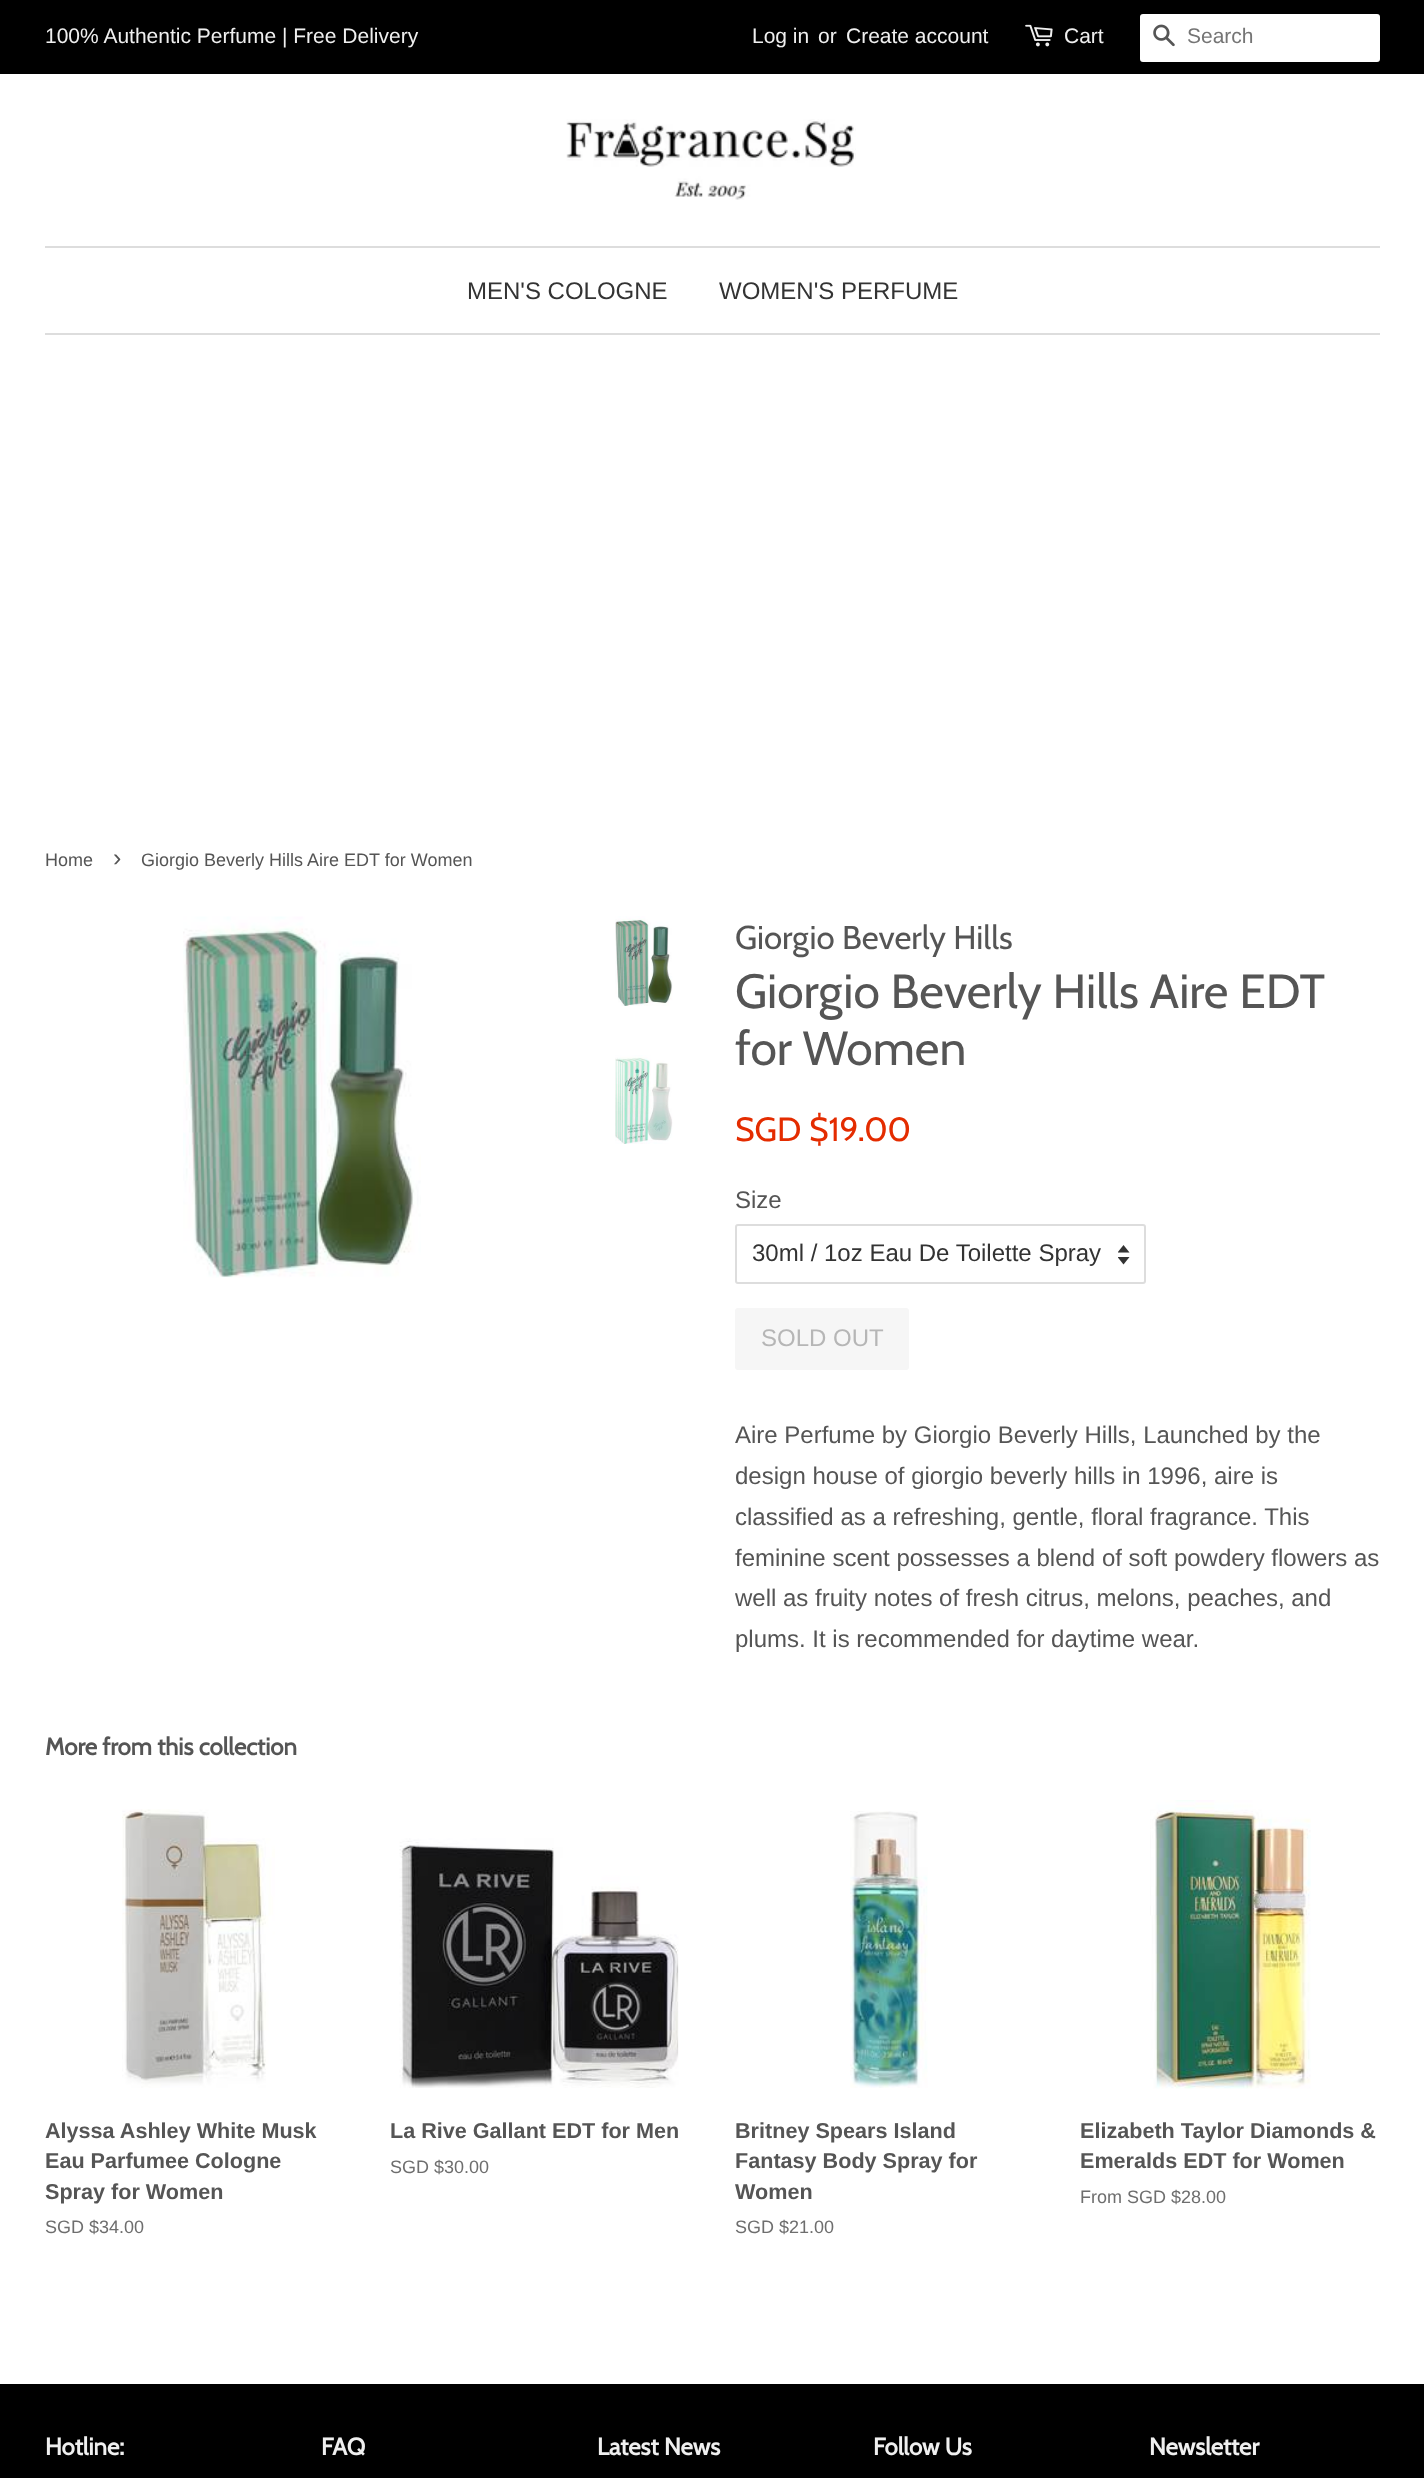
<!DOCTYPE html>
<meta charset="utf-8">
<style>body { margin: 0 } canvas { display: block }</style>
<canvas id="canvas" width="1424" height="2478"></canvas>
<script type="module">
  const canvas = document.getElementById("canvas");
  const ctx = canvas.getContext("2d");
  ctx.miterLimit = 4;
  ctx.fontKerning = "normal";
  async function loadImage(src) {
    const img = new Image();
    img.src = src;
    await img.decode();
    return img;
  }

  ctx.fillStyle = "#ffffff";
  ctx.fillRect(0, 0, 1424, 2478);
  ctx.fillStyle = "#000000";
  ctx.fillRect(0, 0, 1424, 74);
  ctx.font = "21px Liberation Sans";
  ctx.fillStyle = "#efefef";
  ctx.fillText("100% Authentic Perfume | Free Delivery", 45, 43);
  ctx.fillText("Log in", 752, 43);
  ctx.fillText("or", 818, 43);
  ctx.fillText("Create account", 846, 43);
  ctx.drawImage(await loadImage("img1.png"), 1025, 24, 28, 23);
  ctx.fillText("Cart", 1064, 43);
  ctx.fillStyle = "#ffffff";
  ctx.beginPath();
  ctx.roundRect(1140, 14, 240, 48, 3);
  ctx.fill();
  ctx.drawImage(await loadImage("img2.png"), 1153, 24, 22, 23);
  ctx.fillStyle = "#757575";
  ctx.fillText("Search", 1187, 43);
  ctx.drawImage(await loadImage("img3.png"), 566, 119, 290, 81);
  ctx.fillStyle = "#dddddd";
  ctx.fillRect(45, 246, 1335, 2);
  ctx.fillRect(45, 333, 1335, 2);
  ctx.font = "24px Liberation Sans";
  ctx.fillStyle = "#333333";
  ctx.fillText("MEN'S COLOGNE", 467, 299);
  ctx.fillText("WOMEN'S PERFUME", 719, 299);
  ctx.font = "18px Liberation Sans";
  ctx.fillStyle = "#555555";
  ctx.fillText("Home", 45, 866);
  ctx.font = "25px Liberation Sans";
  ctx.fillText("›", 113, 866);
  ctx.font = "18px Liberation Sans";
  ctx.fillText("Giorgio Beverly Hills Aire EDT for Women", 141, 866);
  ctx.drawImage(await loadImage("img4.png"), 183, 916, 238, 362);
  ctx.drawImage(await loadImage("img5.png"), 615, 916, 58, 90);
  ctx.drawImage(await loadImage("img6.png"), 615, 1055, 58, 89);
  ctx.font = "33px Cabin";
  ctx.fillText("Giorgio Beverly Hills", 735, 949);
  ctx.font = "48px Cabin";
  ctx.fillText("Giorgio Beverly Hills Aire EDT", 735, 1008);
  ctx.fillText("for Women", 735, 1065);
  ctx.font = "33.5px Cabin";
  ctx.fillStyle = "#e42c00";
  ctx.fillText("SGD $19.00", 735, 1141);
  ctx.font = "24px Liberation Sans";
  ctx.fillStyle = "#555555";
  ctx.fillText("Size", 735, 1208);
  ctx.drawImage(await loadImage("img7.png"), 1118, 1245, 12, 20);
  ctx.beginPath();
  ctx.roundRect(736, 1225, 409, 58, 2);
  ctx.strokeStyle = "#dddddd";
  ctx.lineWidth = 2;
  ctx.stroke();
  ctx.fillStyle = "#333333";
  ctx.fillText("30ml / 1oz Eau De Toilette Spray", 752, 1261);
  ctx.fillStyle = "#f6f6f6";
  ctx.beginPath();
  ctx.roundRect(735, 1308, 174, 62, 3);
  ctx.fill();
  ctx.fillStyle = "#b6b6b6";
  ctx.fillText("SOLD OUT", 761, 1346);
  ctx.fillStyle = "#555555";
  ctx.fillText("Aire Perfume by Giorgio Beverly Hills, Launched by the", 735, 1443);
  ctx.fillText("design house of giorgio beverly hills in 1996, aire is", 735, 1484);
  ctx.fillText("classified as a refreshing, gentle, floral fragrance. This", 735, 1525);
  ctx.fillText("feminine scent possesses a blend of soft powdery flowers as", 735, 1566);
  ctx.fillText("well as fruity notes of fresh citrus, melons, peaches, and", 735, 1606);
  ctx.fillText("plums. It is recommended for daytime wear.", 735, 1647);
  ctx.font = "bold 24px Cabin";
  ctx.fillText("More from this collection", 45, 1755);
  ctx.drawImage(await loadImage("img8.png"), 122, 1809, 153, 279);
  ctx.font = "bold 21.6px Liberation Sans";
  ctx.fillText("Alyssa Ashley White Musk", 45, 2138);
  ctx.fillText("Eau Parfumee Cologne", 45, 2168);
  ctx.fillText("Spray for Women", 45, 2199);
  ctx.font = "18px Liberation Sans";
  ctx.fillStyle = "#6e6e6e";
  ctx.fillText("SGD $34.00", 45, 2233);
  ctx.drawImage(await loadImage("img9.png"), 399, 1838, 280, 250);
  ctx.font = "bold 21.6px Liberation Sans";
  ctx.fillStyle = "#555555";
  ctx.fillText("La Rive Gallant EDT for Men", 390, 2138);
  ctx.font = "18px Liberation Sans";
  ctx.fillStyle = "#6e6e6e";
  ctx.fillText("SGD $30.00", 390, 2173);
  ctx.drawImage(await loadImage("img10.png"), 850, 1811, 78, 277);
  ctx.font = "bold 21.6px Liberation Sans";
  ctx.fillStyle = "#555555";
  ctx.fillText("Britney Spears Island", 735, 2138);
  ctx.fillText("Fantasy Body Spray for", 735, 2168);
  ctx.fillText("Women", 735, 2199);
  ctx.font = "18px Liberation Sans";
  ctx.fillStyle = "#6e6e6e";
  ctx.fillText("SGD $21.00", 735, 2233);
  ctx.drawImage(await loadImage("img11.png"), 1150, 1800, 161, 289);
  ctx.font = "bold 21.6px Liberation Sans";
  ctx.fillStyle = "#555555";
  ctx.fillText("Elizabeth Taylor Diamonds &", 1080, 2138);
  ctx.fillText("Emeralds EDT for Women", 1080, 2168);
  ctx.font = "18px Liberation Sans";
  ctx.fillStyle = "#6e6e6e";
  ctx.fillText("From SGD $28.00", 1080, 2203);
  ctx.fillStyle = "#000000";
  ctx.fillRect(0, 2384, 1424, 94);
  ctx.font = "bold 24px Cabin";
  ctx.fillStyle = "#efefef";
  ctx.fillText("Hotline:", 45, 2455);
  ctx.fillText("FAQ", 321, 2455);
  ctx.fillText("Latest News", 597, 2455);
  ctx.fillText("Follow Us", 873, 2455);
  ctx.fillText("Newsletter", 1149, 2455);
</script>
